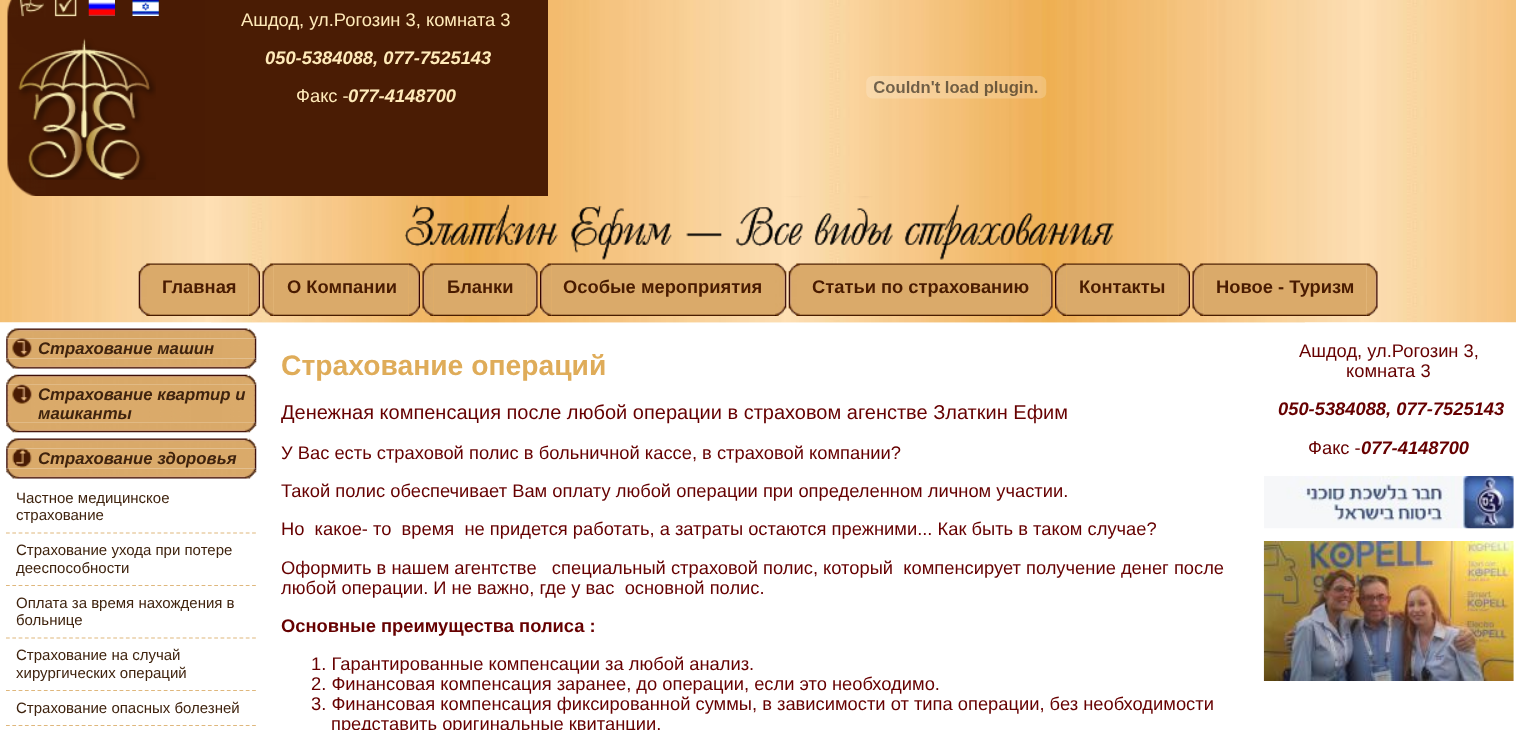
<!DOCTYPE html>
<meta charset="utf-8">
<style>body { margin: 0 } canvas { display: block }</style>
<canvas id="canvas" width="1516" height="730"></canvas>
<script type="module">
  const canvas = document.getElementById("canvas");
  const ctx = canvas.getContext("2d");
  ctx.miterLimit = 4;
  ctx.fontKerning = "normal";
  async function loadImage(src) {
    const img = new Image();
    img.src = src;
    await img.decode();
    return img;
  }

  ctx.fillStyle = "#ffffff";
  ctx.fillRect(0, 0, 1516, 730);
  ctx.drawImage(await loadImage("img1.png"), 0, 0, 1516, 323);
  ctx.drawImage(await loadImage("img2.png"), 211, 322, 1094, 1);
  ctx.drawImage(await loadImage("img3.png"), 7, 0, 198, 196);
  ctx.drawImage(await loadImage("img4.png"), 18, 0, 26, 17);
  ctx.drawImage(await loadImage("img5.png"), 54, 0, 23, 17);
  ctx.drawImage(await loadImage("img6.png"), 88, 0, 27, 16);
  ctx.drawImage(await loadImage("img7.png"), 132, 0, 27, 16);
  ctx.drawImage(await loadImage("img8.png"), 18, 38, 138, 142);
  ctx.fillStyle = "#4a1c04";
  ctx.fillRect(205, 0, 343, 196);
  ctx.font = "18.33px Liberation Sans";
  ctx.fillStyle = "#ffeab9";
  ctx.fillText("Ашдод, ул.Рогозин 3, комната 3", 241, 26);
  ctx.font = "italic bold 18.33px Liberation Sans";
  ctx.fillText("050-5384088, 077-7525143", 265, 64);
  ctx.font = "18.33px Liberation Sans";
  ctx.fillText("Факс -", 296, 102);
  ctx.font = "italic bold 18.33px Liberation Sans";
  ctx.fillText("077-4148700", 348, 102);
  ctx.drawImage(await loadImage("img9.png"), 866, 76, 181, 23);
  ctx.drawImage(await loadImage("img10.png"), 404, 196, 710, 64);
  ctx.drawImage(await loadImage("img11.png"), 138, 263, 12, 53);
  ctx.drawImage(await loadImage("img12.png"), 150, 263, 99, 53);
  ctx.font = "bold 18.33px Liberation Sans";
  ctx.fillStyle = "#491b01";
  ctx.fillText("Главная", 162, 293);
  ctx.drawImage(await loadImage("img13.png"), 248, 263, 12, 53);
  ctx.drawImage(await loadImage("img15.png"), 273, 263, 136, 53);
  ctx.drawImage(await loadImage("img14.png"), 262, 263, 12, 53);
  ctx.fillText("О Компании", 287, 293);
  ctx.drawImage(await loadImage("img16.png"), 408, 263, 12, 53);
  ctx.drawImage(await loadImage("img17.png"), 422, 263, 12, 53);
  ctx.drawImage(await loadImage("img19.png"), 526, 263, 12, 53);
  ctx.drawImage(await loadImage("img18.png"), 433, 263, 94, 53);
  ctx.fillText("Бланки", 447, 293);
  ctx.drawImage(await loadImage("img21.png"), 551, 263, 224, 53);
  ctx.drawImage(await loadImage("img20.png"), 540, 263, 12, 53);
  ctx.fillText("Особые мероприятия", 563, 293);
  ctx.drawImage(await loadImage("img22.png"), 775, 263, 12, 53);
  ctx.drawImage(await loadImage("img23.png"), 788, 263, 12, 53);
  ctx.drawImage(await loadImage("img24.png"), 800, 263, 242, 53);
  ctx.fillText("Статьи по страхованию", 812, 293);
  ctx.drawImage(await loadImage("img25.png"), 1041, 263, 12, 53);
  ctx.drawImage(await loadImage("img27.png"), 1066, 263, 113, 53);
  ctx.drawImage(await loadImage("img26.png"), 1055, 263, 12, 53);
  ctx.fillText("Контакты", 1079, 293);
  ctx.drawImage(await loadImage("img28.png"), 1178, 263, 12, 53);
  ctx.drawImage(await loadImage("img30.png"), 1203, 263, 164, 53);
  ctx.drawImage(await loadImage("img29.png"), 1192, 263, 12, 53);
  ctx.fillText("Новое - Туризм", 1216, 293);
  ctx.drawImage(await loadImage("img31.png"), 1366, 263, 12, 53);
  ctx.drawImage(await loadImage("img32.png"), 6, 328, 251, 11);
  ctx.drawImage(await loadImage("img33.png"), 6, 338, 251, 21);
  ctx.drawImage(await loadImage("img34.png"), 12, 338, 20, 20);
  ctx.font = "italic bold 16.75px Liberation Sans";
  ctx.fillStyle = "#3f230e";
  ctx.fillText("Страхование машин", 38, 354);
  ctx.drawImage(await loadImage("img35.png"), 6, 358, 251, 11);
  ctx.drawImage(await loadImage("img36.png"), 6, 374, 251, 11);
  ctx.drawImage(await loadImage("img37.png"), 6, 384, 251, 39);
  ctx.drawImage(await loadImage("img38.png"), 12, 384, 20, 20);
  ctx.fillText("Страхование квартир и", 38, 400);
  ctx.fillText("машканты", 38, 419);
  ctx.drawImage(await loadImage("img39.png"), 6, 422, 251, 11);
  ctx.drawImage(await loadImage("img32.png"), 6, 438, 251, 11);
  ctx.drawImage(await loadImage("img40.png"), 6, 448, 251, 21);
  ctx.drawImage(await loadImage("img41.png"), 12, 448, 20, 20);
  ctx.fillText("Страхование здоровья", 38, 464);
  ctx.drawImage(await loadImage("img35.png"), 6, 468, 251, 11);
  ctx.font = "15px Liberation Sans";
  ctx.fillText("Частное медицинское", 16, 503);
  ctx.fillText("страхование", 16, 520);
  ctx.beginPath();
  ctx.moveTo(6, 533);
  ctx.lineTo(256, 533);
  ctx.strokeStyle = "#dfb77c";
  ctx.lineWidth = 1.2;
  ctx.setLineDash([3.75, 2.56]);
  ctx.stroke();
  ctx.fillText("Страхование ухода при потере", 16, 555);
  ctx.fillText("дееспособности", 16, 573);
  ctx.beginPath();
  ctx.moveTo(6, 585.5);
  ctx.lineTo(256, 585.5);
  ctx.stroke();
  ctx.fillText("Оплата за время нахождения в", 16, 608);
  ctx.fillText("больнице", 16, 625);
  ctx.beginPath();
  ctx.moveTo(6, 638);
  ctx.lineTo(256, 638);
  ctx.stroke();
  ctx.fillText("Страхование на случай", 16, 660);
  ctx.fillText("хирургических операций", 16, 678);
  ctx.beginPath();
  ctx.moveTo(6, 690.5);
  ctx.lineTo(256, 690.5);
  ctx.stroke();
  ctx.fillText("Страхование опасных болезней", 16, 713);
  ctx.beginPath();
  ctx.moveTo(6, 725.5);
  ctx.lineTo(256, 725.5);
  ctx.stroke();
  ctx.font = "bold 28.25px Liberation Sans";
  ctx.fillStyle = "#dfac59";
  ctx.fillText("Страхование операций", 281, 375);
  ctx.font = "20px Liberation Sans";
  ctx.fillStyle = "#660000";
  ctx.fillText("Денежная компенсация после любой операции в страховом агенстве Златкин Ефим", 281, 419);
  ctx.font = "18.33px Liberation Sans";
  ctx.fillText("У Вас есть страховой полис в больничной кассе, в страховой компании?", 281, 459);
  ctx.fillText("Такой полис обеспечивает Вам оплату любой операции при определенном личном участии.", 281, 497);
  ctx.fillText("Но  какое- то  время  не придется работать, а затраты остаются прежними... Как быть в таком случае?", 281, 535);
  ctx.fillText("Оформить в нашем агентстве   специальный страховой полис, который  компенсирует получение денег после", 281, 574);
  ctx.fillText("любой операции. И не важно, где у вас  основной полис.", 281, 594);
  ctx.font = "bold 18.33px Liberation Sans";
  ctx.fillText("Основные преимущества полиса :", 281, 632);
  ctx.font = "18.33px Liberation Sans";
  ctx.fillText("1. Гарантированные компенсации за любой анализ.", 311, 670);
  ctx.fillText("2. Финансовая компенсация заранее, до операции, если это необходимо.", 311, 690);
  ctx.fillText("3. Финансовая компенсация фиксированной суммы, в зависимости от типа операции, без необходимости", 311, 710);
  ctx.fillText("представить оригинальные квитанции.", 331, 730);
  ctx.fillText("Ашдод, ул.Рогозин 3,", 1299, 357);
  ctx.fillText("комната 3", 1346, 377);
  ctx.font = "italic bold 18.33px Liberation Sans";
  ctx.fillText("050-5384088, 077-7525143", 1278, 415);
  ctx.font = "18.33px Liberation Sans";
  ctx.fillText("Факс -", 1308, 454);
  ctx.font = "italic bold 18.33px Liberation Sans";
  ctx.fillText("077-4148700", 1361, 454);
  ctx.drawImage(await loadImage("img42.png"), 1264, 476, 250, 53);
  ctx.drawImage(await loadImage("img43.png"), 1263, 541, 251, 140);
</script>
